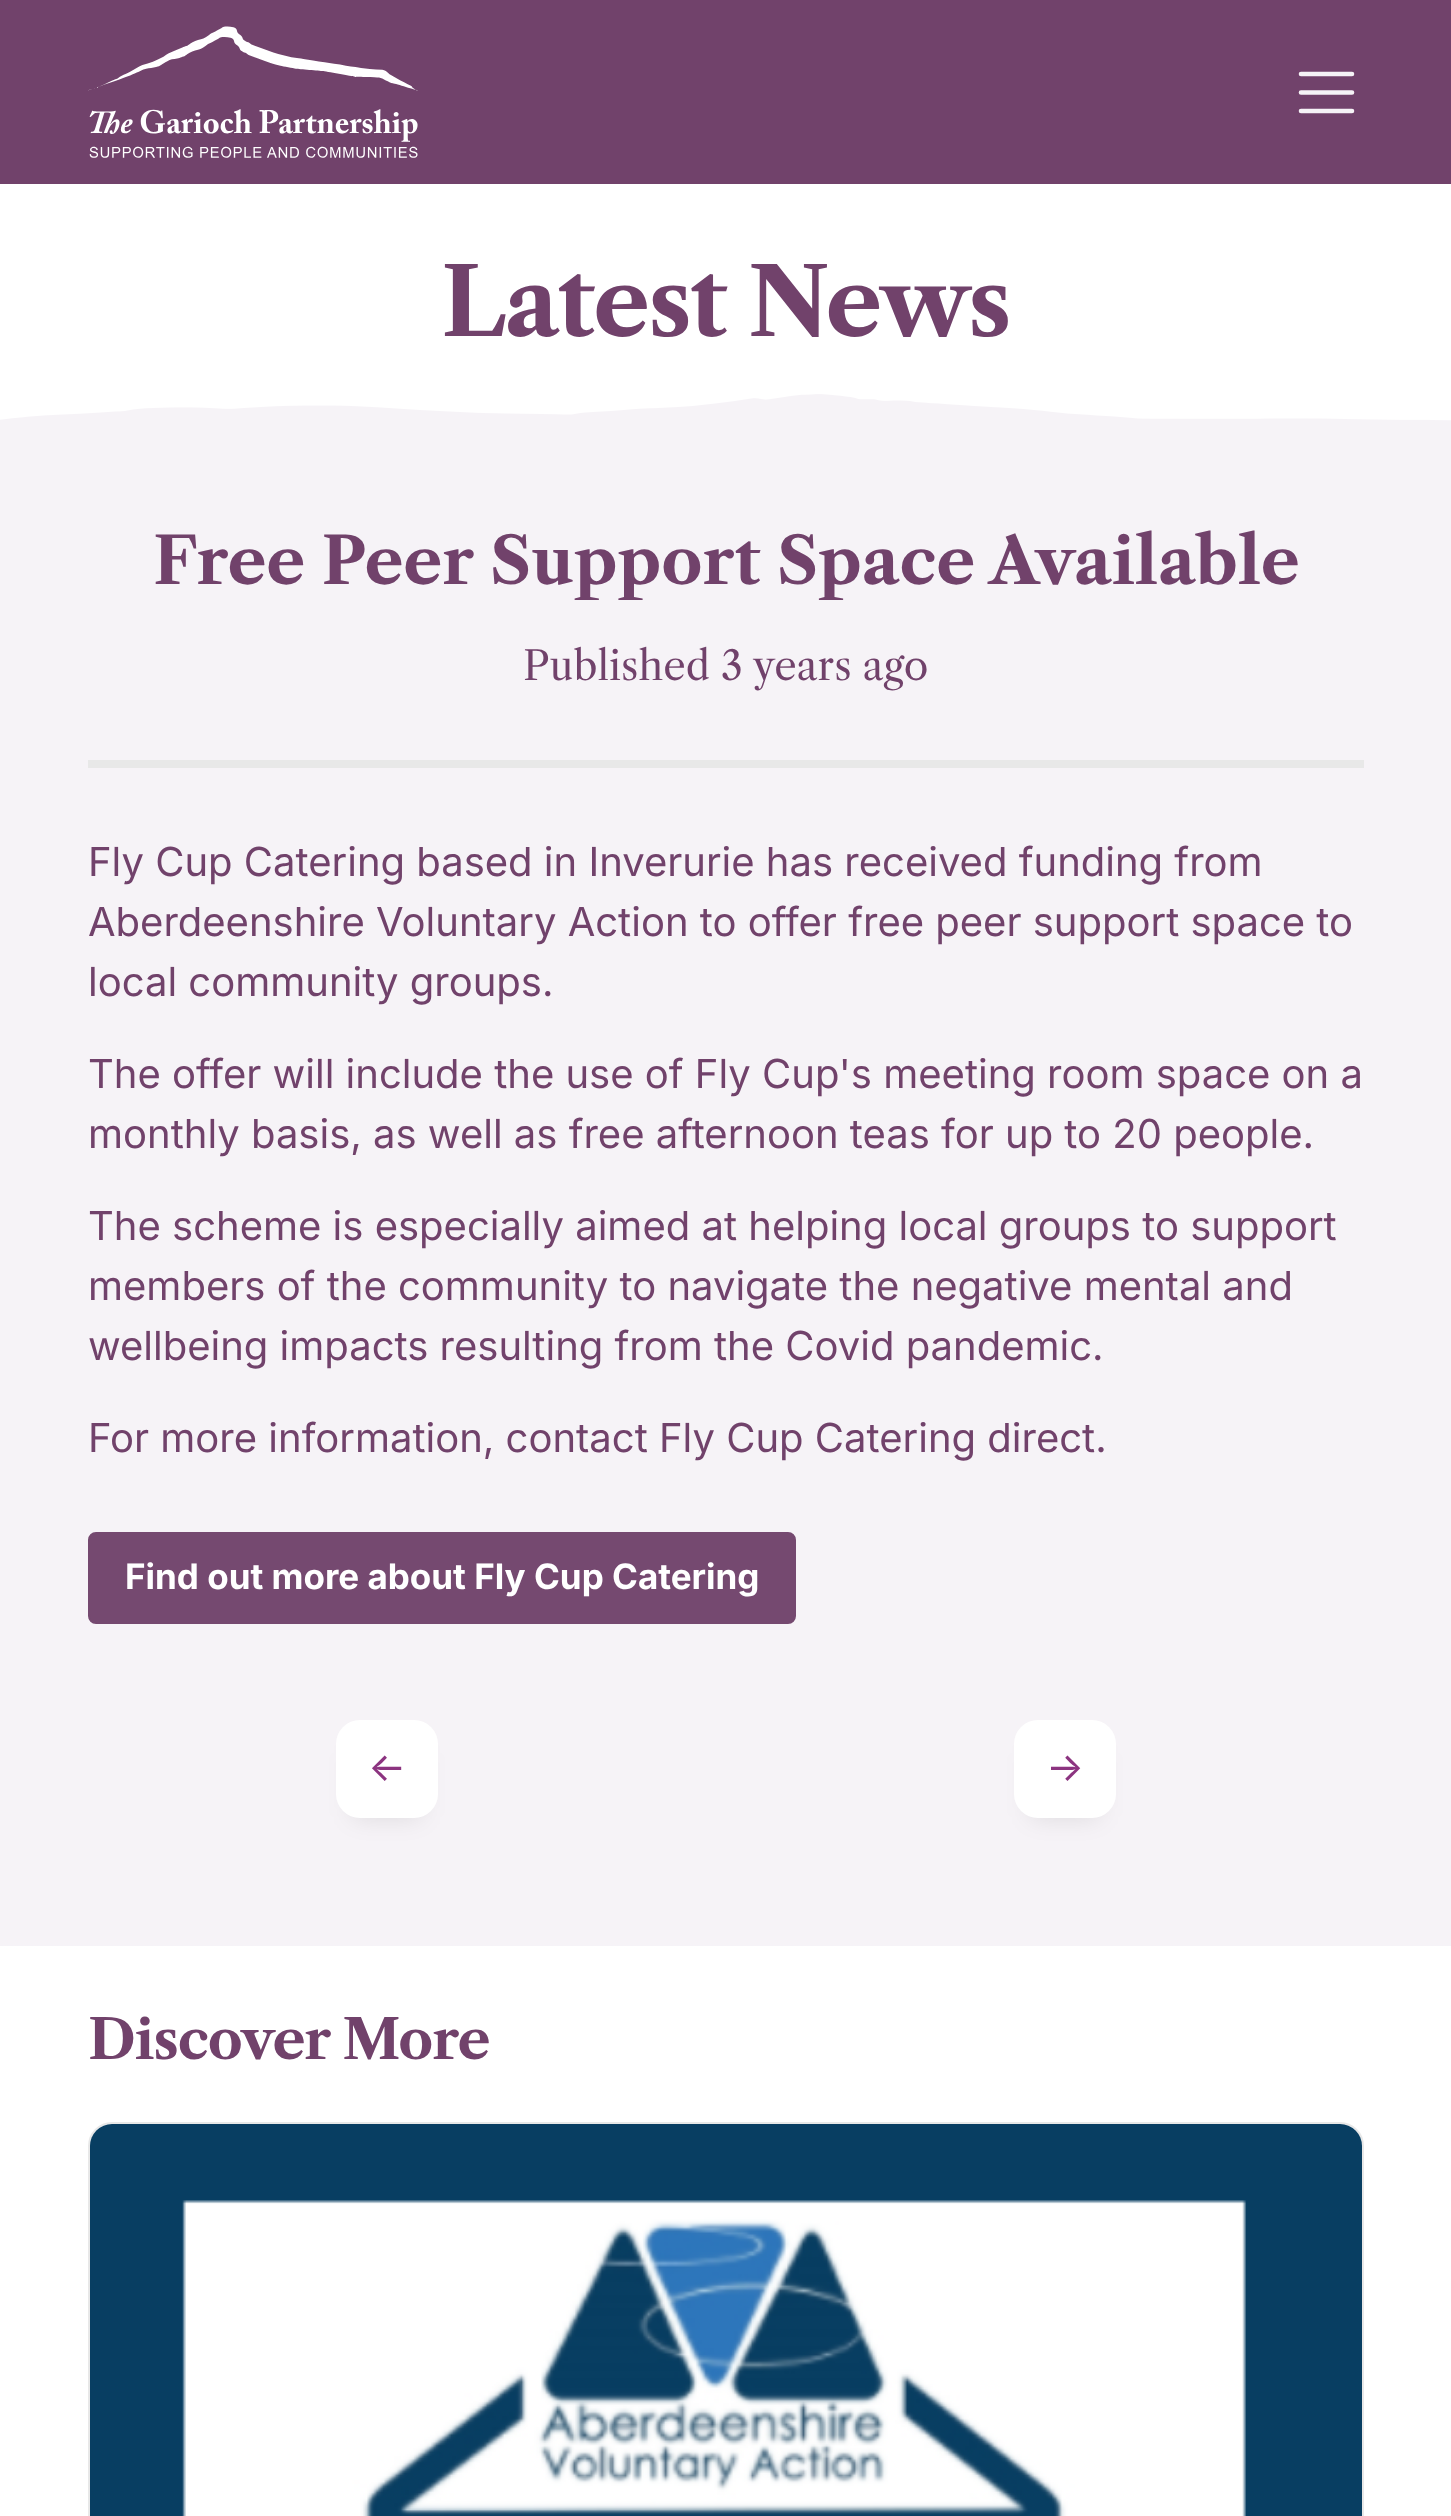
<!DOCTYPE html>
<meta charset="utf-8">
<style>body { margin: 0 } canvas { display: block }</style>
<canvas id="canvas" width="1451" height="2516"></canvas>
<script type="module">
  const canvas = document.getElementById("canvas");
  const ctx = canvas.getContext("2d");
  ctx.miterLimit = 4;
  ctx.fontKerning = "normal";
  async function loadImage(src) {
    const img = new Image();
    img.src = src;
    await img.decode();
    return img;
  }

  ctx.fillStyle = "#71426b";
  ctx.fillRect(0, 0, 1451, 2516);
  ctx.drawImage(await loadImage("img1.png"), 88, 26, 330, 132);
  ctx.beginPath();
  ctx.moveTo(1301, 74);
  ctx.lineTo(1352, 74);
  ctx.moveTo(1301, 92.5);
  ctx.lineTo(1352, 92.5);
  ctx.moveTo(1301, 111);
  ctx.lineTo(1352, 111);
  ctx.strokeStyle = "#f6f3f7";
  ctx.lineWidth = 4.6;
  ctx.lineCap = "round";
  ctx.stroke();
  ctx.fillStyle = "#f6f3f7";
  ctx.fillRect(0, 424, 1451, 1522);
  ctx.fillStyle = "#ffffff";
  ctx.fillRect(0, 184, 1451, 237);
  ctx.drawImage(await loadImage("img2.png"), 0, 394, 1451, 30);
  ctx.letterSpacing = "-1.9px";
  ctx.font = "bold 93.5px Libre Caslon Text";
  ctx.fillStyle = "#71426b";
  ctx.fillText("Latest News", 441, 336);
  ctx.letterSpacing = "0px";
  ctx.font = "bold 64.4px Libre Caslon Text";
  ctx.fillText("Free Peer Support Space Available", 153, 584);
  ctx.fillStyle = "#e8e8e8";
  ctx.fillRect(88, 760, 1276, 8);
  ctx.font = "40px Libre Caslon Text";
  ctx.fillStyle = "#71426b";
  ctx.fillText("Published 3 years ago", 523, 680);
  ctx.font = "40px Inter";
  ctx.fillText("Fly Cup Catering based in Inverurie has received funding from", 88, 876);
  ctx.fillText("Aberdeenshire Voluntary Action to offer free peer support space to", 88, 936);
  ctx.fillText("local community groups.", 88, 996);
  ctx.fillText("The offer will include the use of Fly Cup's meeting room space on a", 88, 1088);
  ctx.fillText("monthly basis, as well as free afternoon teas for up to 20 people.", 88, 1148);
  ctx.fillText("The scheme is especially aimed at helping local groups to support", 88, 1240);
  ctx.fillText("members of the community to navigate the negative mental and", 88, 1300);
  ctx.fillText("wellbeing impacts resulting from the Covid pandemic.", 88, 1360);
  ctx.fillText("For more information, contact Fly Cup Catering direct.", 88, 1452);
  ctx.fillStyle = "#754970";
  ctx.beginPath();
  ctx.roundRect(89, 1533, 706, 90, 7);
  ctx.fill();
  ctx.strokeStyle = "#754970";
  ctx.lineWidth = 2;
  ctx.stroke();
  ctx.font = "bold 35px Inter";
  ctx.fillStyle = "#ffffff";
  ctx.fillText("Find out more about Fly Cup Catering", 125, 1589);
  ctx.fillStyle = "rgba(0, 0, 0, 0.1)";
  ctx.filter = "blur(12px)";
  ctx.beginPath();
  ctx.roundRect(352, 1752, 70, 66, 8);
  ctx.fill();
  ctx.filter = "none";
  ctx.fillStyle = "#ffffff";
  ctx.beginPath();
  ctx.roundRect(336, 1720, 102, 98, 24);
  ctx.fill();
  ctx.font = "40px Inter";
  ctx.fillStyle = "#8c3480";
  ctx.fillText("←", 368, 1781);
  ctx.fillStyle = "rgba(0, 0, 0, 0.1)";
  ctx.filter = "blur(12px)";
  ctx.beginPath();
  ctx.roundRect(1030, 1752, 70, 66, 8);
  ctx.fill();
  ctx.filter = "none";
  ctx.fillStyle = "#ffffff";
  ctx.beginPath();
  ctx.roundRect(1014, 1720, 102, 98, 24);
  ctx.fill();
  ctx.fillStyle = "#8c3480";
  ctx.fillText("→", 1046, 1781);
  ctx.fillStyle = "#ffffff";
  ctx.fillRect(0, 1946, 1451, 570);
  ctx.letterSpacing = "-1.1px";
  ctx.font = "bold 54.5px Libre Caslon Text";
  ctx.fillStyle = "#71426b";
  ctx.fillText("Discover More", 88, 2059);
  ctx.beginPath();
  ctx.roundRect(89, 2123, 1274, 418, 23);
  ctx.strokeStyle = "#e8e8e8";
  ctx.stroke();
  ctx.drawImage(await loadImage("img3.png"), 90, 2124, 1272, 392);
</script>
